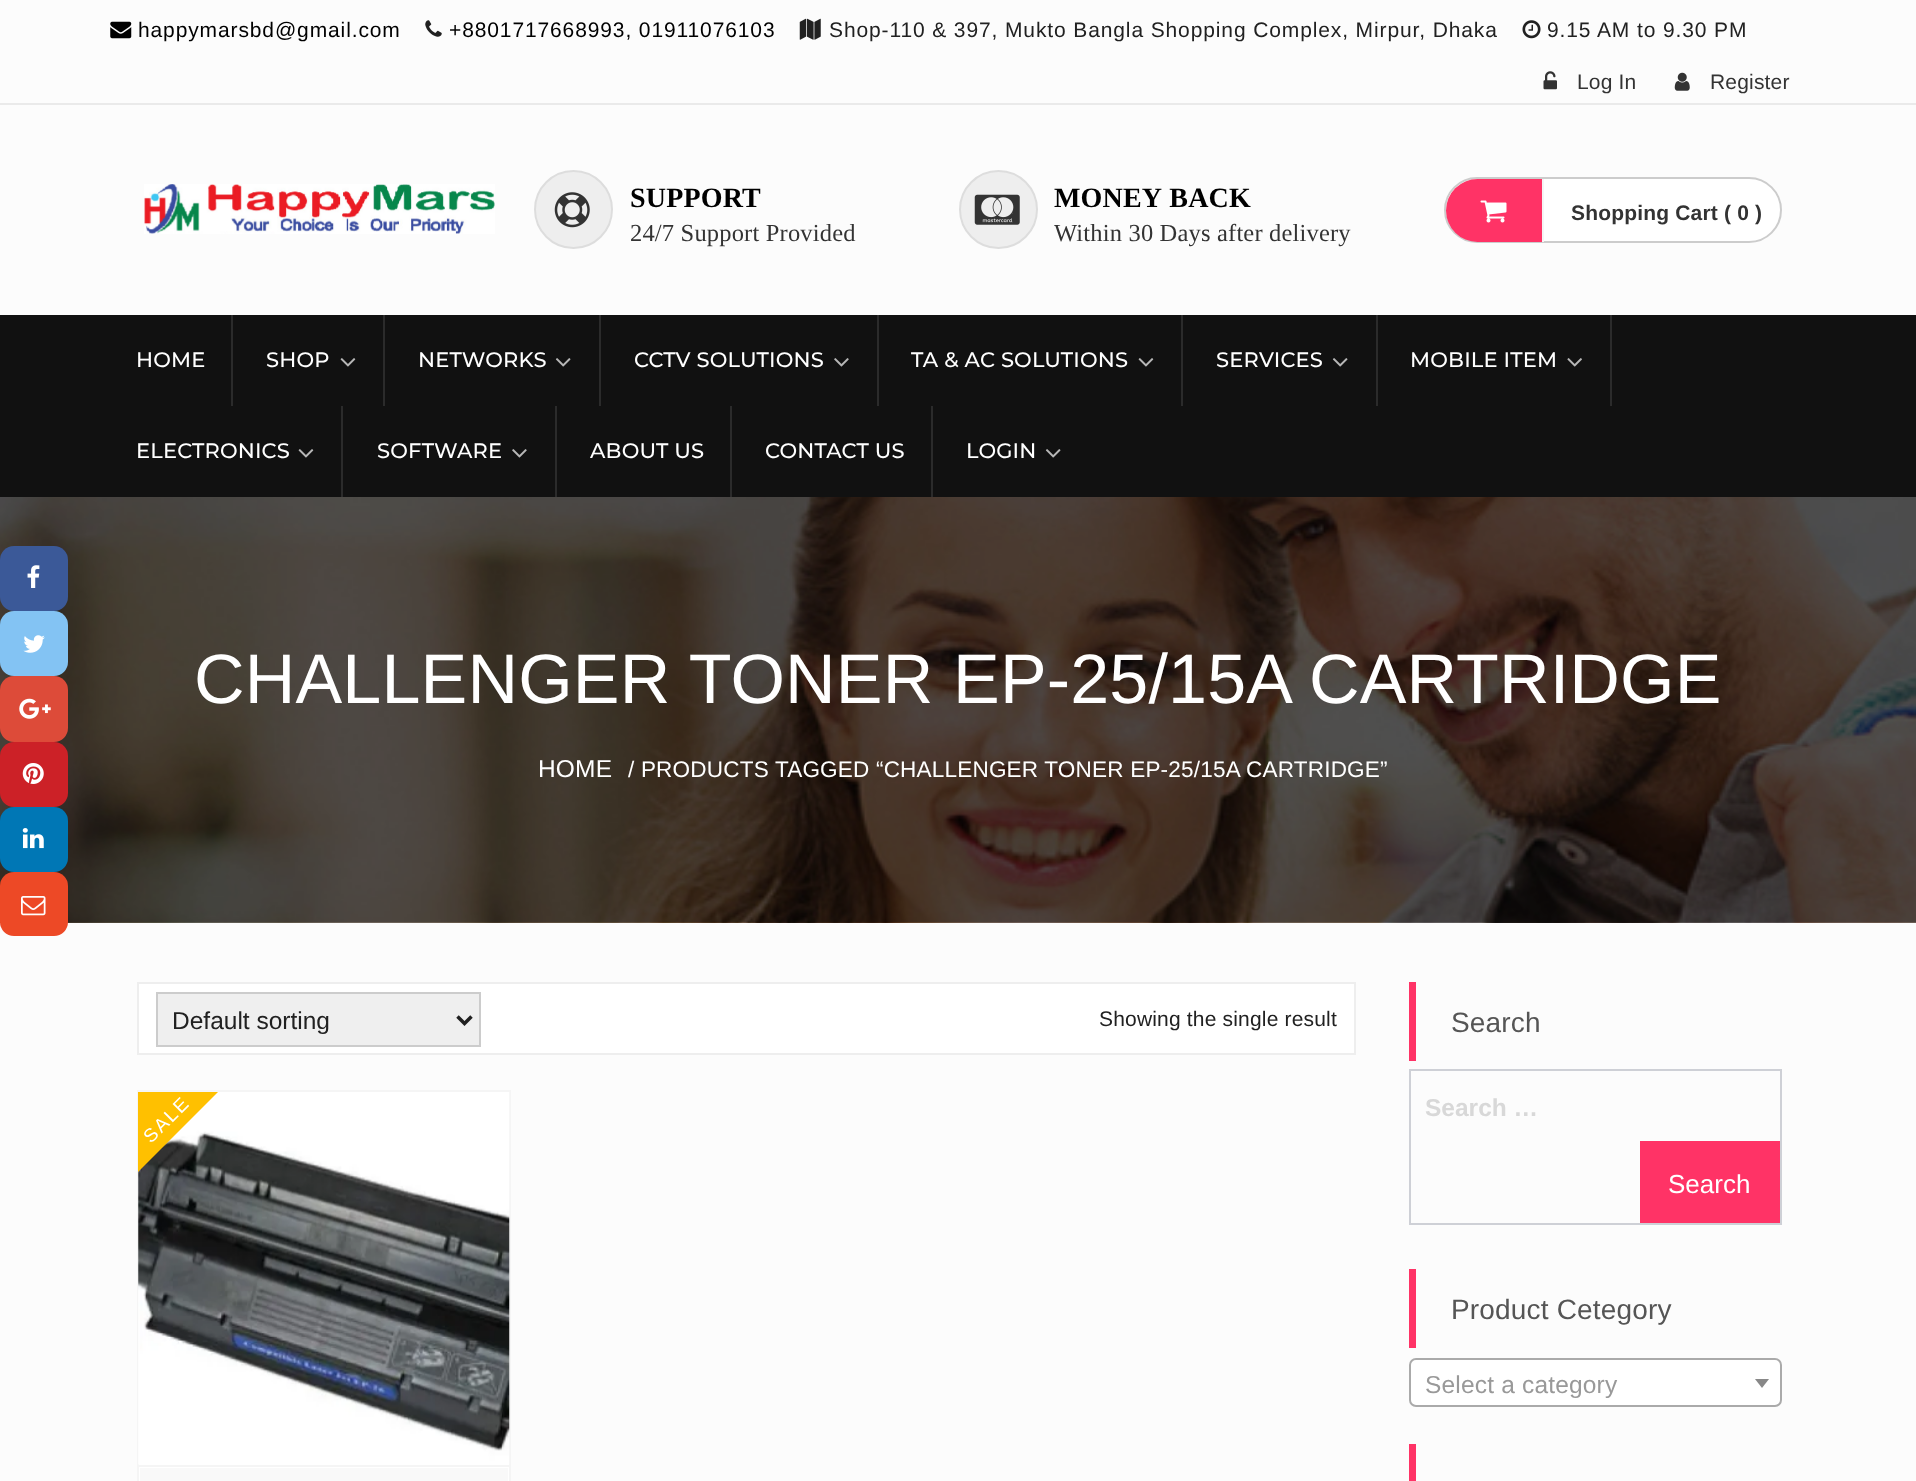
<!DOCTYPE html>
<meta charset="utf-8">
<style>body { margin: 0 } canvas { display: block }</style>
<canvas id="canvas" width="1916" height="1481"></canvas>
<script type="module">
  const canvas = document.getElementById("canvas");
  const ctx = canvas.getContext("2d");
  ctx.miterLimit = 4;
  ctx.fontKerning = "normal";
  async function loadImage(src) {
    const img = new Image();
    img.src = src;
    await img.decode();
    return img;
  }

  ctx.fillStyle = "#fcfcfc";
  ctx.fillRect(0, 0, 1916, 1481);
  ctx.drawImage(await loadImage("img21.png"), 0, 497, 1916, 426);
  ctx.fillStyle = "#3b5998";
  ctx.beginPath();
  ctx.roundRect(0, 546, 68, 65, 14);
  ctx.fill();
  ctx.drawImage(await loadImage("img1.png"), 27, 565, 13, 23);
  ctx.fillStyle = "#83c3f3";
  ctx.beginPath();
  ctx.roundRect(0, 611, 68, 65, 14);
  ctx.fill();
  ctx.drawImage(await loadImage("img2.png"), 23, 635, 22, 18);
  ctx.fillStyle = "#dd4b39";
  ctx.beginPath();
  ctx.roundRect(0, 676, 68, 66, 14);
  ctx.fill();
  ctx.drawImage(await loadImage("img3.png"), 19, 698, 32, 21);
  ctx.fillStyle = "#cc2127";
  ctx.beginPath();
  ctx.roundRect(0, 742, 68, 65, 14);
  ctx.fill();
  ctx.drawImage(await loadImage("img4.png"), 22, 763, 22, 21);
  ctx.fillStyle = "#0077b5";
  ctx.beginPath();
  ctx.roundRect(0, 807, 68, 65, 14);
  ctx.fill();
  ctx.drawImage(await loadImage("img5.png"), 22, 828, 22, 21);
  ctx.fillStyle = "#ed4926";
  ctx.beginPath();
  ctx.roundRect(0, 872, 68, 64, 14);
  ctx.fill();
  ctx.drawImage(await loadImage("img6.png"), 21, 896, 25, 20);
  ctx.fillStyle = "#eaeaea";
  ctx.fillRect(0, 103, 1916, 2);
  ctx.drawImage(await loadImage("img7.png"), 110, 21, 22, 18);
  ctx.letterSpacing = "0.88px";
  ctx.font = "21px Liberation Sans";
  ctx.fillStyle = "#000000";
  ctx.fillText("happymarsbd@gmail.com", 138, 37);
  ctx.drawImage(await loadImage("img8.png"), 425, 20, 17, 17);
  ctx.fillText("+8801717668993, 01911076103", 449, 37);
  ctx.drawImage(await loadImage("img9.png"), 799, 18, 22, 22);
  ctx.fillStyle = "#212121";
  ctx.fillText("Shop-110 & 397, Mukto Bangla Shopping Complex, Mirpur, Dhaka", 829, 37);
  ctx.drawImage(await loadImage("img10.png"), 1522, 20, 19, 19);
  ctx.fillText("9.15 AM to 9.30 PM", 1547, 37);
  ctx.drawImage(await loadImage("img11.png"), 1543, 71, 14, 19);
  ctx.letterSpacing = "0.18px";
  ctx.fillStyle = "#333333";
  ctx.fillText("Log In", 1577, 89);
  ctx.drawImage(await loadImage("img12.png"), 1674, 72, 16, 19);
  ctx.fillText("Register", 1710, 89);
  ctx.drawImage(await loadImage("img13.png"), 144, 184, 351, 50);
  ctx.fillStyle = "#eeeeee";
  ctx.beginPath();
  ctx.arc(573.5, 209.5, 38.5, 0, Math.PI * 2);
  ctx.fill();
  ctx.strokeStyle = "#dddddd";
  ctx.lineWidth = 2;
  ctx.stroke();
  ctx.drawImage(await loadImage("img14.png"), 554, 192, 36, 36);
  ctx.font = "bold 28px Liberation Serif";
  ctx.fillStyle = "#000000";
  ctx.fillText("SUPPORT", 630, 207);
  ctx.font = "24.5px Liberation Serif";
  ctx.fillStyle = "#333333";
  ctx.fillText("24/7 Support Provided", 630, 241);
  ctx.fillStyle = "#eeeeee";
  ctx.beginPath();
  ctx.arc(998.5, 209.5, 38.5, 0, Math.PI * 2);
  ctx.fill();
  ctx.stroke();
  ctx.drawImage(await loadImage("img15.png"), 974, 194, 46, 31);
  ctx.wordSpacing = "1px";
  ctx.font = "bold 28px Liberation Serif";
  ctx.fillStyle = "#000000";
  ctx.fillText("MONEY BACK", 1054, 207);
  ctx.wordSpacing = "0px";
  ctx.font = "24.5px Liberation Serif";
  ctx.fillStyle = "#333333";
  ctx.fillText("Within 30 Days after delivery", 1054, 241);
  ctx.fillStyle = "#ffffff";
  ctx.beginPath();
  ctx.roundRect(1445, 178, 336, 64, 32);
  ctx.fill();
  ctx.strokeStyle = "#cccccc";
  ctx.stroke();
  ctx.fillStyle = "#ff3366";
  ctx.beginPath();
  ctx.roundRect(1446, 179, 98, 63, [31.5, 0, 0, 31.5]);
  ctx.fill();
  ctx.fillStyle = "#f5f5f5";
  ctx.fillRect(1542, 179, 2, 63);
  ctx.drawImage(await loadImage("img16.png"), 1480, 200, 27, 23);
  ctx.font = "bold 21px Liberation Sans";
  ctx.fillStyle = "#333333";
  ctx.fillText("Shopping Cart ( 0 )", 1571, 220);
  ctx.fillStyle = "#111111";
  ctx.fillRect(0, 315, 1916, 182);
  ctx.fillStyle = "#2b2b2b";
  ctx.fillRect(231, 315, 2, 91);
  ctx.font = "500 21px Montserrat";
  ctx.fillStyle = "#ffffff";
  ctx.fillText("HOME", 136, 367);
  ctx.fillStyle = "#2b2b2b";
  ctx.fillRect(383, 315, 2, 91);
  ctx.fillStyle = "#ffffff";
  ctx.fillText("SHOP", 266, 367);
  ctx.drawImage(await loadImage("img17.png"), 340, 358, 16, 9);
  ctx.fillStyle = "#2b2b2b";
  ctx.fillRect(599, 315, 2, 91);
  ctx.fillStyle = "#ffffff";
  ctx.fillText("NETWORKS", 418, 367);
  ctx.drawImage(await loadImage("img18.png"), 555, 358, 16, 9);
  ctx.fillStyle = "#2b2b2b";
  ctx.fillRect(877, 315, 2, 91);
  ctx.fillStyle = "#ffffff";
  ctx.fillText("CCTV SOLUTIONS", 634, 367);
  ctx.drawImage(await loadImage("img19.png"), 834, 358, 15, 9);
  ctx.fillStyle = "#2b2b2b";
  ctx.fillRect(1181, 315, 2, 91);
  ctx.fillStyle = "#ffffff";
  ctx.fillText("TA & AC SOLUTIONS", 911, 367);
  ctx.drawImage(await loadImage("img17.png"), 1138, 358, 16, 9);
  ctx.fillStyle = "#2b2b2b";
  ctx.fillRect(1376, 315, 2, 91);
  ctx.fillStyle = "#ffffff";
  ctx.fillText("SERVICES", 1216, 367);
  ctx.drawImage(await loadImage("img18.png"), 1332, 358, 16, 9);
  ctx.fillStyle = "#2b2b2b";
  ctx.fillRect(1610, 315, 2, 91);
  ctx.fillStyle = "#ffffff";
  ctx.fillText("MOBILE ITEM", 1410, 367);
  ctx.drawImage(await loadImage("img20.png"), 1567, 358, 15, 9);
  ctx.fillStyle = "#2b2b2b";
  ctx.fillRect(341, 406, 2, 91);
  ctx.fillStyle = "#ffffff";
  ctx.fillText("ELECTRONICS", 136, 458);
  ctx.drawImage(await loadImage("img17.png"), 298, 449, 16, 9);
  ctx.fillStyle = "#2b2b2b";
  ctx.fillRect(555, 406, 2, 91);
  ctx.fillStyle = "#ffffff";
  ctx.fillText("SOFTWARE", 377, 458);
  ctx.drawImage(await loadImage("img19.png"), 512, 449, 15, 9);
  ctx.fillStyle = "#2b2b2b";
  ctx.fillRect(730, 406, 2, 91);
  ctx.fillStyle = "#ffffff";
  ctx.fillText("ABOUT US", 590, 458);
  ctx.fillStyle = "#2b2b2b";
  ctx.fillRect(931, 406, 2, 91);
  ctx.fillStyle = "#ffffff";
  ctx.fillText("CONTACT US", 765, 458);
  ctx.fillText("LOGIN", 966, 458);
  ctx.drawImage(await loadImage("img18.png"), 1045, 449, 16, 9);
  ctx.font = "70px Liberation Sans";
  ctx.fillText("CHALLENGER TONER EP-25/15A CARTRIDGE", 194, 703);
  ctx.font = "24.5px Liberation Sans";
  ctx.fillText("HOME", 538, 777);
  ctx.font = "22.55px Liberation Sans";
  ctx.fillText("/ PRODUCTS TAGGED “CHALLENGER TONER EP-25/15A CARTRIDGE”", 628, 777);
  ctx.beginPath();
  ctx.rect(138, 983, 1217, 71);
  ctx.fill();
  ctx.strokeStyle = "#eeeeee";
  ctx.stroke();
  ctx.fillStyle = "#efefef";
  ctx.beginPath();
  ctx.rect(157, 993, 323, 53);
  ctx.fill();
  ctx.strokeStyle = "#cccccc";
  ctx.stroke();
  ctx.beginPath();
  ctx.moveTo(457.5, 1016.5);
  ctx.lineTo(464.5, 1023.5);
  ctx.lineTo(471.5, 1016.5);
  ctx.strokeStyle = "#212121";
  ctx.lineWidth = 3.5;
  ctx.stroke();
  ctx.letterSpacing = "0px";
  ctx.font = "24.5px Liberation Sans";
  ctx.fillStyle = "#212121";
  ctx.fillText("Default sorting", 172, 1029);
  ctx.letterSpacing = "0.18px";
  ctx.font = "21px Liberation Sans";
  ctx.fillText("Showing the single result", 1099, 1026);
  ctx.fillStyle = "#ffffff";
  ctx.fillRect(139, 1464, 370, 17);
  ctx.strokeStyle = "#f5f5f5";
  ctx.lineWidth = 2;
  ctx.strokeRect(138, 1091, 372, 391);
  ctx.fillStyle = "#f5f5f5";
  ctx.fillRect(138, 1465, 371, 2);
  ctx.drawImage(await loadImage("img22.png"), 138, 1092, 372, 373);
  ctx.save();
  ctx.beginPath();
  ctx.rect(138, 1092, 371, 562);
  ctx.clip();
  ctx.fillStyle = "#ffc000";
  ctx.beginPath();
  ctx.moveTo(83, 1128);
  ctx.lineTo(176, 1036);
  ctx.lineTo(225, 1085);
  ctx.lineTo(132, 1178);
  ctx.closePath();
  ctx.fill();
  ctx.restore();
  ctx.letterSpacing = "2px";
  ctx.font = "19px Liberation Sans";
  ctx.fillStyle = "#ffffff";
  ctx.save();
  ctx.translate(151, 1144);
  ctx.rotate(-45 * Math.PI / 180);
  ctx.fillText("SALE", 0, 0);
  ctx.restore();
  ctx.fillStyle = "#f9f9f9";
  ctx.fillRect(140, 1468, 368, 13);
  ctx.fillStyle = "#ff3366";
  ctx.fillRect(1409, 982, 7, 79);
  ctx.letterSpacing = "0.18px";
  ctx.font = "28px Liberation Sans";
  ctx.fillStyle = "#555555";
  ctx.fillText("Search", 1451, 1032);
  ctx.strokeStyle = "#ced0d6";
  ctx.strokeRect(1410, 1070, 371, 154);
  ctx.letterSpacing = "0px";
  ctx.font = "bold 24.5px Liberation Sans";
  ctx.fillStyle = "#d8d8d8";
  ctx.fillText("Search …", 1425, 1116);
  ctx.fillStyle = "#ff3366";
  ctx.fillRect(1640, 1141, 140, 82);
  ctx.font = "26px Liberation Sans";
  ctx.fillStyle = "#ffffff";
  ctx.fillText("Search", 1668, 1193);
  ctx.fillStyle = "#ff3366";
  ctx.fillRect(1409, 1269, 7, 79);
  ctx.letterSpacing = "0.18px";
  ctx.font = "28px Liberation Sans";
  ctx.fillStyle = "#555555";
  ctx.fillText("Product Cetegory", 1451, 1319);
  ctx.fillStyle = "#ffffff";
  ctx.beginPath();
  ctx.roundRect(1410, 1359, 371, 47, 6);
  ctx.fill();
  ctx.strokeStyle = "#aaaaaa";
  ctx.stroke();
  ctx.font = "24.5px Liberation Sans";
  ctx.fillStyle = "#999999";
  ctx.fillText("Select a category", 1425, 1393);
  ctx.fillStyle = "#888888";
  ctx.beginPath();
  ctx.moveTo(1755, 1379);
  ctx.lineTo(1769, 1379);
  ctx.lineTo(1762, 1388);
  ctx.closePath();
  ctx.fill();
  ctx.fillStyle = "#ff3366";
  ctx.fillRect(1409, 1444, 7, 37);
</script>
